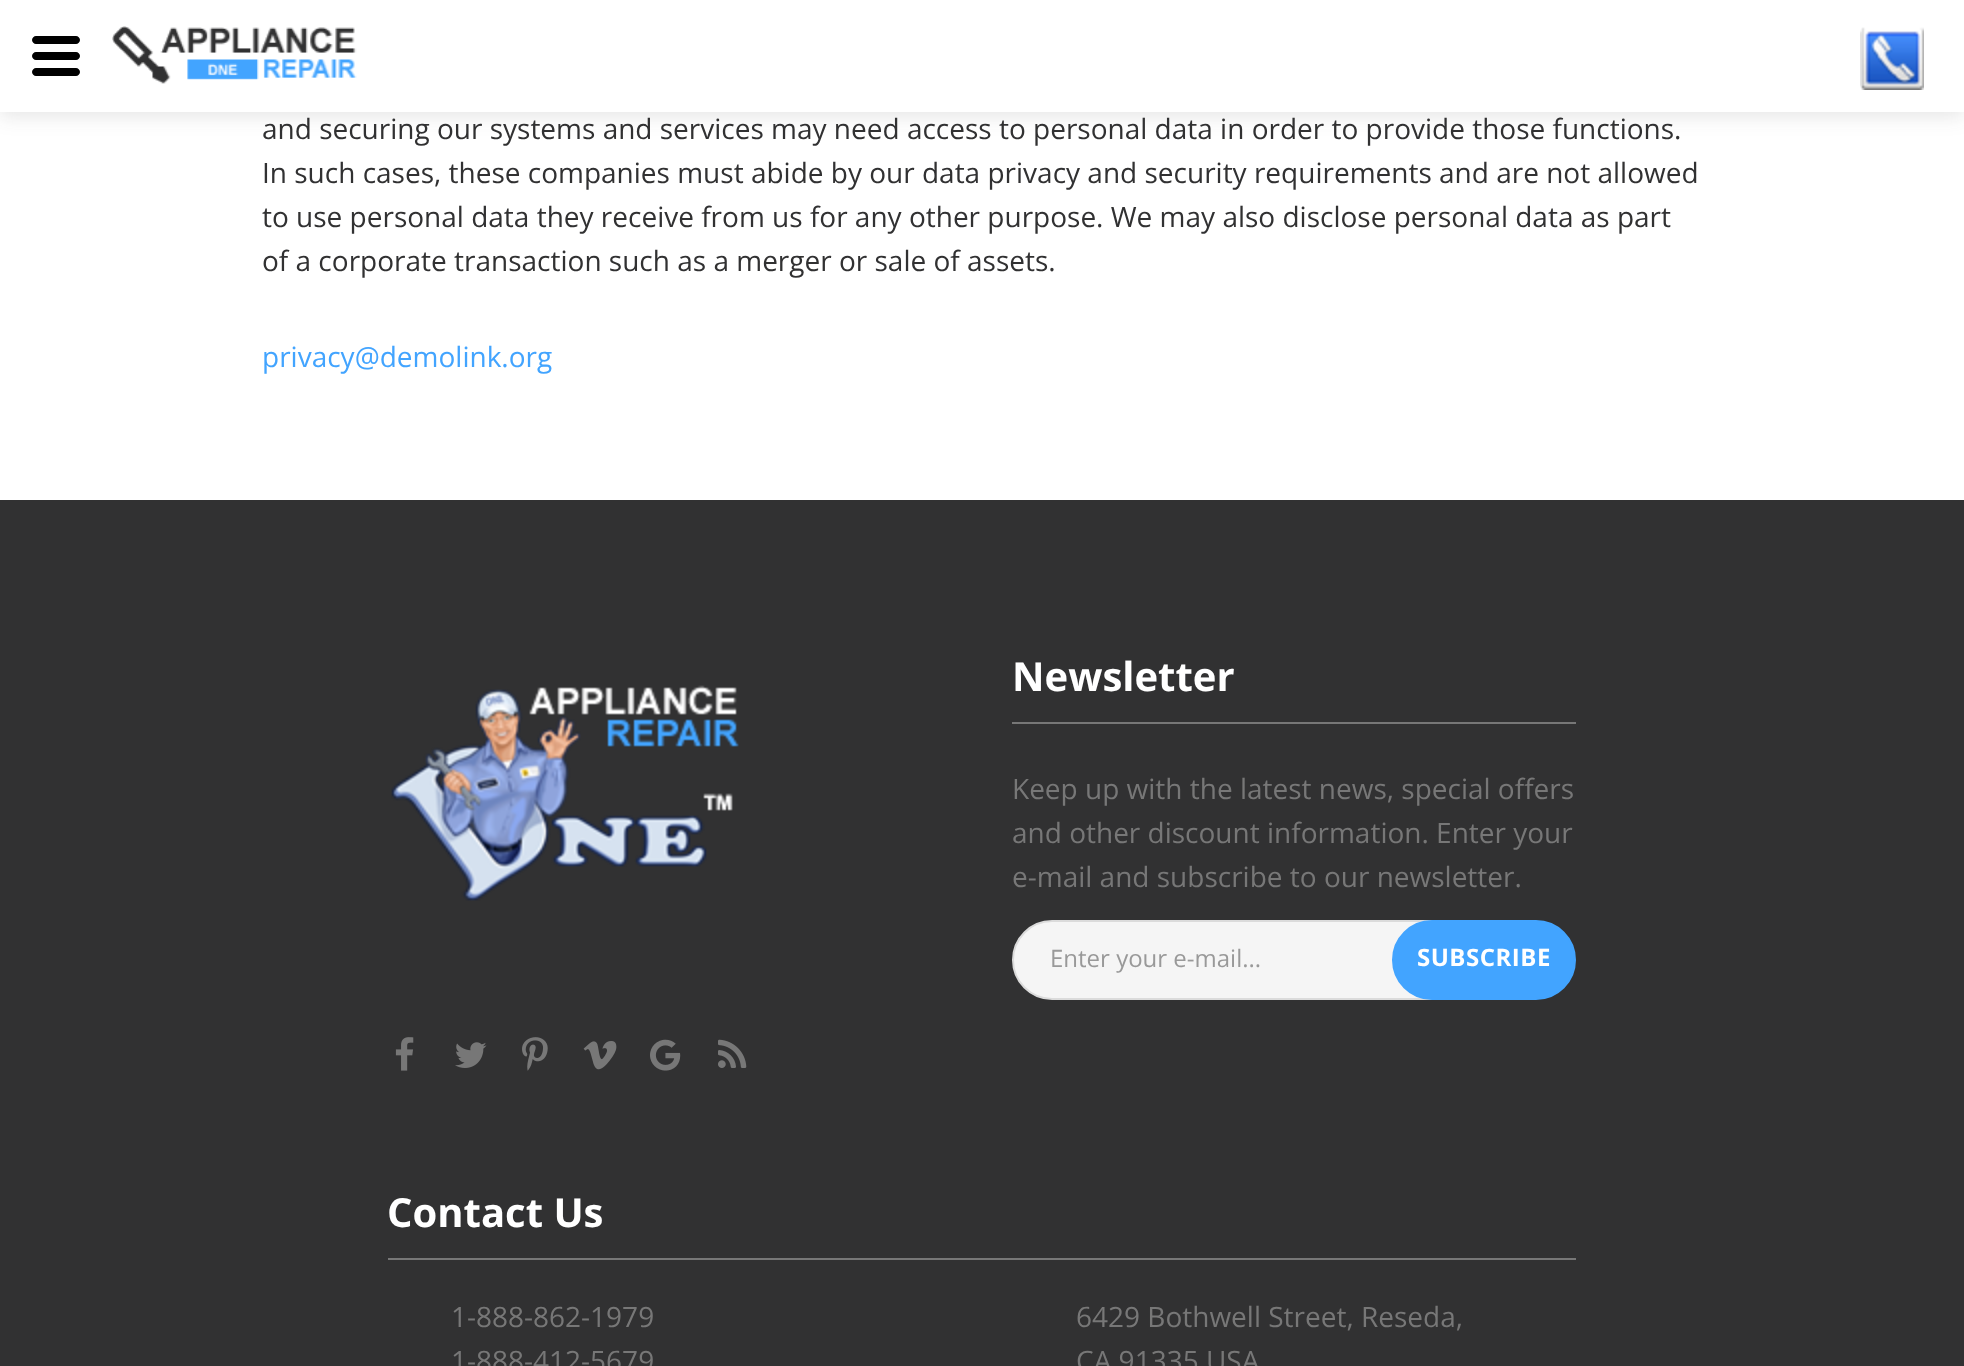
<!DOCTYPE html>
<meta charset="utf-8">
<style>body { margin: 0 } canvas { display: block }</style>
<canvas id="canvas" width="1964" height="1366"></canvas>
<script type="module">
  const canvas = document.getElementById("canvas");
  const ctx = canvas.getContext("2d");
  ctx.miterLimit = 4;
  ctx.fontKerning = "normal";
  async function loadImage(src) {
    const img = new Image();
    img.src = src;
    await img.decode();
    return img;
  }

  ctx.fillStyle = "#ffffff";
  ctx.fillRect(0, 0, 1964, 1366);
  ctx.fillStyle = "rgba(49, 49, 50, 0.13)";
  ctx.filter = "blur(10px)";
  ctx.beginPath();
  ctx.rect(0, 4, 1964, 112);
  ctx.fill();
  ctx.filter = "none";
  ctx.fillStyle = "#ffffff";
  ctx.fillRect(0, 0, 1964, 112);
  ctx.fillStyle = "#000000";
  ctx.beginPath();
  ctx.moveTo(76, 60);
  ctx.lineTo(36, 60);
  ctx.bezierCurveTo(34, 60, 32, 58, 32, 56);
  ctx.bezierCurveTo(32, 54, 34, 52, 36, 52);
  ctx.lineTo(76, 52);
  ctx.bezierCurveTo(78, 52, 80, 54, 80, 56);
  ctx.bezierCurveTo(80, 58, 78, 60, 76, 60);
  ctx.closePath();
  ctx.moveTo(76, 76);
  ctx.lineTo(36, 76);
  ctx.bezierCurveTo(34, 76, 32, 74, 32, 72);
  ctx.bezierCurveTo(32, 70, 34, 68, 36, 68);
  ctx.lineTo(76, 68);
  ctx.bezierCurveTo(78, 68, 80, 70, 80, 72);
  ctx.bezierCurveTo(80, 74, 78, 76, 76, 76);
  ctx.closePath();
  ctx.moveTo(76, 44);
  ctx.lineTo(36, 44);
  ctx.bezierCurveTo(34, 44, 32, 42, 32, 40);
  ctx.bezierCurveTo(32, 38, 34, 36, 36, 36);
  ctx.lineTo(76, 36);
  ctx.bezierCurveTo(78, 36, 80, 38, 80, 40);
  ctx.bezierCurveTo(80, 42, 78, 44, 76, 44);
  ctx.closePath();
  ctx.fill();
  ctx.drawImage(await loadImage("img1.png"), 112, 26, 245, 58);
  ctx.drawImage(await loadImage("img2.png"), 1860, 27, 64, 63);
  ctx.font = "28px Open Sans";
  ctx.fillStyle = "#313132";
  ctx.fillText("and securing our systems and services may need access to personal data in order to provide those functions.", 262, 139);
  ctx.fillText("In such cases, these companies must abide by our data privacy and security requirements and are not allowed", 262, 183);
  ctx.fillText("to use personal data they receive from us for any other purpose. We may also disclose personal data as part", 262, 227);
  ctx.fillText("of a corporate transaction such as a merger or sale of assets.", 262, 271);
  ctx.fillStyle = "#42a4ff";
  ctx.fillText("privacy@demolink.org", 262, 367);
  ctx.fillStyle = "#313132";
  ctx.fillRect(0, 500, 1964, 866);
  ctx.drawImage(await loadImage("img3.png"), 391, 685, 348, 216);
  ctx.drawImage(await loadImage("img4.png"), 395, 1037, 19, 34);
  ctx.drawImage(await loadImage("img5.png"), 455, 1042, 32, 26);
  ctx.drawImage(await loadImage("img6.png"), 522, 1037, 26, 34);
  ctx.drawImage(await loadImage("img7.png"), 583, 1041, 34, 29);
  ctx.drawImage(await loadImage("img8.png"), 650, 1039, 31, 32);
  ctx.drawImage(await loadImage("img9.png"), 718, 1039, 29, 29);
  ctx.font = "bold 40px Open Sans";
  ctx.fillStyle = "#ffffff";
  ctx.fillText("Newsletter", 1012, 691);
  ctx.fillStyle = "#777777";
  ctx.fillRect(1012, 722, 564, 2);
  ctx.font = "28px Open Sans";
  ctx.fillText("Keep up with the latest news, special offers", 1012, 799);
  ctx.fillText("and other discount information. Enter your", 1012, 843);
  ctx.fillText("e-mail and subscribe to our newsletter.", 1012, 887);
  ctx.fillStyle = "#f5f5f5";
  ctx.beginPath();
  ctx.roundRect(1013, 921, 418, 78, [39, 0, 0, 39]);
  ctx.fill();
  ctx.strokeStyle = "#dbdbdb";
  ctx.lineWidth = 2;
  ctx.stroke();
  ctx.font = "24px Open Sans";
  ctx.fillStyle = "#999999";
  ctx.fillText("Enter your e-mail...", 1050, 967);
  ctx.fillStyle = "#42a4ff";
  ctx.beginPath();
  ctx.roundRect(1393, 921, 182, 78, 39);
  ctx.fill();
  ctx.strokeStyle = "#42a4ff";
  ctx.stroke();
  ctx.letterSpacing = "0.5px";
  ctx.font = "bold 24px Open Sans";
  ctx.fillStyle = "#ffffff";
  ctx.fillText("SUBSCRIBE", 1417, 966);
  ctx.letterSpacing = "0px";
  ctx.font = "bold 40px Open Sans";
  ctx.fillText("Contact Us", 387, 1227);
  ctx.fillStyle = "#777777";
  ctx.fillRect(388, 1258, 1188, 2);
  ctx.font = "28px Open Sans";
  ctx.fillText("1-888-862-1979", 451, 1327);
  ctx.fillText("1-888-412-5679", 451, 1371);
  ctx.fillText("6429 Bothwell Street, Reseda,", 1076, 1327);
  ctx.fillText("CA 91335 USA", 1076, 1371);
</script>
